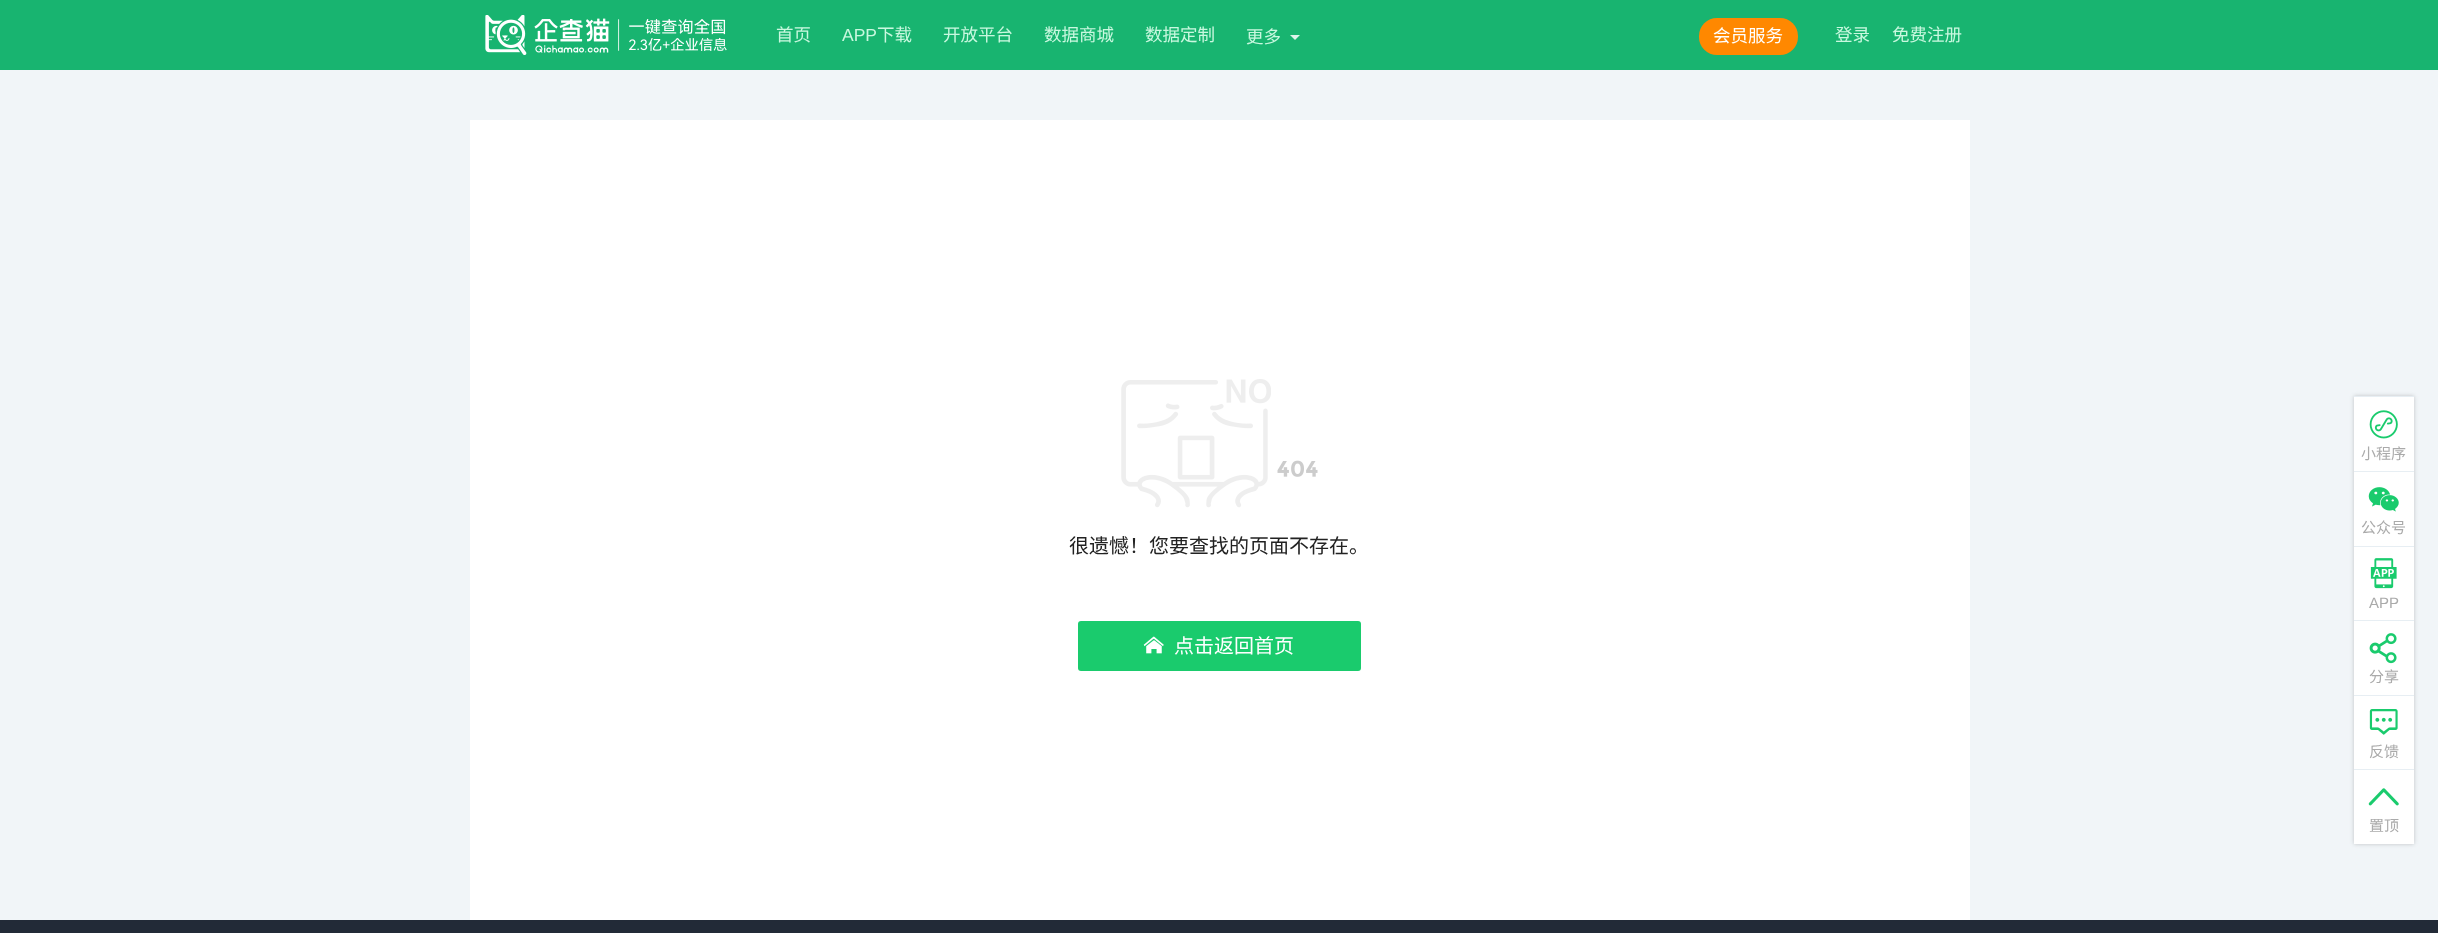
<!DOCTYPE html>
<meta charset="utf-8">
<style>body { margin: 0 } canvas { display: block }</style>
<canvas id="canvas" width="2438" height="933"></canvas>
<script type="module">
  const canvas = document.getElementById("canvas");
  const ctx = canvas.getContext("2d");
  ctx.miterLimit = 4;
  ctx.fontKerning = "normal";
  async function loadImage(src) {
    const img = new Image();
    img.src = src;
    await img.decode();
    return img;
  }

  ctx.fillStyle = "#f1f5f8";
  ctx.fillRect(0, 0, 2438, 933);
  ctx.fillStyle = "#18b470";
  ctx.fillRect(0, 0, 2438, 70);
  ctx.drawImage(await loadImage("img1.png"), 485, 15, 242, 40);
  ctx.font = "17.5px Noto Sans CJK SC";
  ctx.fillStyle = "#c9f8df";
  ctx.fillText("首页", 776, 41);
  ctx.font = "17.5px Liberation Sans";
  ctx.fillText("APP", 842, 41);
  ctx.font = "17.5px Noto Sans CJK SC";
  ctx.fillText("下载", 877, 41);
  ctx.fillText("开放平台", 943, 41);
  ctx.fillText("数据商城", 1044, 41);
  ctx.fillText("数据定制", 1145, 41);
  ctx.fillText("更多", 1246, 43);
  ctx.fillStyle = "#dcf4ea";
  ctx.beginPath();
  ctx.moveTo(1290, 35);
  ctx.lineTo(1300, 35);
  ctx.lineTo(1295, 40);
  ctx.closePath();
  ctx.fill();
  ctx.fillStyle = "#ff8800";
  ctx.beginPath();
  ctx.roundRect(1699, 18, 99, 37, 18);
  ctx.fill();
  ctx.fillStyle = "#ffffff";
  ctx.fillText("会员服务", 1713, 42);
  ctx.fillStyle = "#c9f8df";
  ctx.fillText("登录", 1835, 41);
  ctx.fillText("免费注册", 1892, 41);
  ctx.fillStyle = "#ffffff";
  ctx.fillRect(470, 120, 1500, 800);
  ctx.drawImage(await loadImage("img2.png"), 1121, 379, 150, 129);
  ctx.drawImage(await loadImage("img3.png"), 1277, 460, 41, 17);
  ctx.font = "20px Noto Sans CJK SC";
  ctx.fillStyle = "#222222";
  ctx.fillText("很遗憾！您要查找的页面不存在。", 1069, 553);
  ctx.fillStyle = "#1acb6d";
  ctx.beginPath();
  ctx.roundRect(1078, 621, 283, 50, 3);
  ctx.fill();
  ctx.drawImage(await loadImage("img4.png"), 1143, 636, 21, 18);
  ctx.fillStyle = "#ffffff";
  ctx.fillText("点击返回首页", 1174, 653);
  ctx.fillStyle = "rgba(0, 0, 0, 0.2)";
  ctx.filter = "blur(2px)";
  ctx.beginPath();
  ctx.rect(2354, 396, 60, 448);
  ctx.fill();
  ctx.filter = "none";
  ctx.fillStyle = "#ffffff";
  ctx.fillRect(2354, 397, 60, 447);
  ctx.fillStyle = "#e7eef3";
  ctx.fillRect(2354, 396, 60, 1);
  ctx.drawImage(await loadImage("img5.png"), 2369, 410, 29, 29);
  ctx.font = "15px Noto Sans CJK SC";
  ctx.fillStyle = "#aaaaaa";
  ctx.fillText("小程序", 2361, 459);
  ctx.fillStyle = "#e7eef3";
  ctx.fillRect(2354, 471, 60, 1);
  ctx.drawImage(await loadImage("img6.png"), 2368, 487, 31, 25);
  ctx.fillStyle = "#aaaaaa";
  ctx.fillText("公众号", 2361, 533);
  ctx.fillStyle = "#e7eef3";
  ctx.fillRect(2354, 546, 60, 1);
  ctx.drawImage(await loadImage("img7.png"), 2370, 558, 27, 31);
  ctx.font = "15px Liberation Sans";
  ctx.fillStyle = "#aaaaaa";
  ctx.fillText("APP", 2369, 608);
  ctx.fillStyle = "#e7eef3";
  ctx.fillRect(2354, 620, 60, 1);
  ctx.drawImage(await loadImage("img8.png"), 2369, 633, 28, 31);
  ctx.font = "15px Noto Sans CJK SC";
  ctx.fillStyle = "#aaaaaa";
  ctx.fillText("分享", 2369, 682);
  ctx.fillStyle = "#e7eef3";
  ctx.fillRect(2354, 695, 60, 1);
  ctx.drawImage(await loadImage("img9.png"), 2369, 709, 29, 26);
  ctx.fillStyle = "#aaaaaa";
  ctx.fillText("反馈", 2369, 757);
  ctx.fillStyle = "#e7eef3";
  ctx.fillRect(2354, 769, 60, 1);
  ctx.drawImage(await loadImage("img10.png"), 2368, 788, 31, 18);
  ctx.fillStyle = "#aaaaaa";
  ctx.fillText("置顶", 2369, 831);
  ctx.fillStyle = "#222a37";
  ctx.fillRect(0, 920, 2438, 13);
</script>
